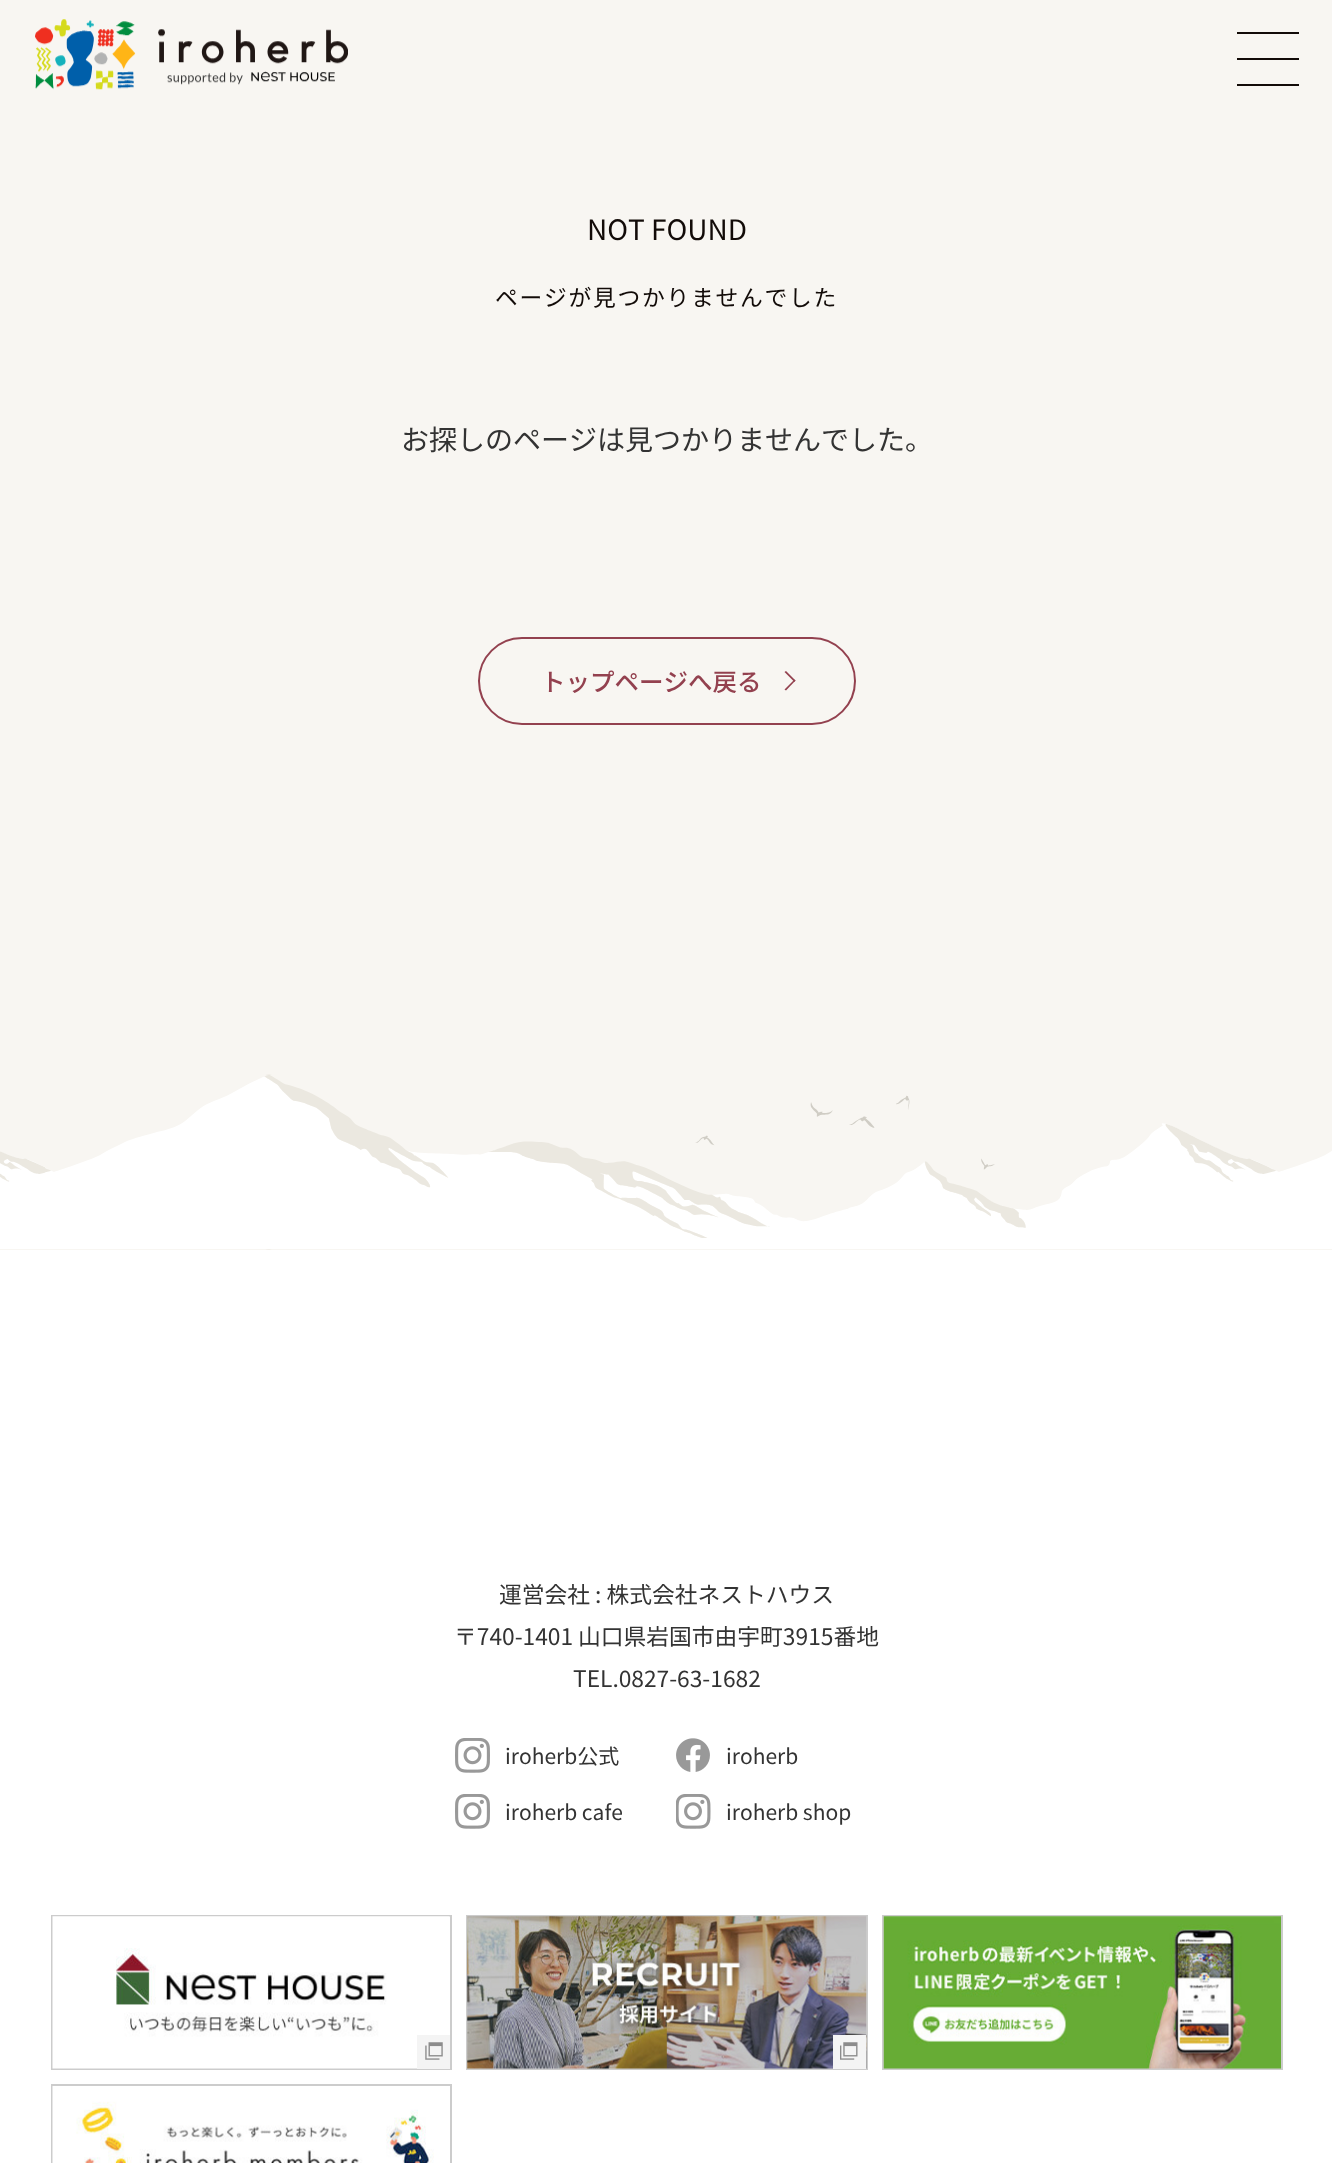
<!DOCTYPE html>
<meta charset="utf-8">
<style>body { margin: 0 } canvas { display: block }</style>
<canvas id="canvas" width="1332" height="2163"></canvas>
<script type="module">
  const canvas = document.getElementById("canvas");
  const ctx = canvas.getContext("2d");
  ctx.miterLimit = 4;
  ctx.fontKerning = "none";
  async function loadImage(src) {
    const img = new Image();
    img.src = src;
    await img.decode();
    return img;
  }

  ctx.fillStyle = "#f8f6f2";
  ctx.fillRect(0, 0, 1332, 2163);
  ctx.drawImage(await loadImage("img1.png"), 35, 19, 313, 71);
  ctx.fillStyle = "#120b08";
  ctx.fillRect(1237, 32, 62, 2);
  ctx.fillRect(1237, 58, 62, 2);
  ctx.fillRect(1237, 84, 62, 2);
  ctx.font = "28px Noto Sans JP";
  ctx.fillText("NOT FOUND", 587, 240);
  ctx.letterSpacing = "1.75px";
  ctx.font = "22.75px Noto Sans JP";
  ctx.fillText("ページが見つかりませんでした", 495, 306);
  ctx.letterSpacing = "0px";
  ctx.font = "28px Noto Sans JP";
  ctx.fillStyle = "#333333";
  ctx.fillText("お探しのページは見つかりませんでした。", 401, 450);
  ctx.beginPath();
  ctx.roundRect(479, 638, 376, 86, 43);
  ctx.strokeStyle = "#93414f";
  ctx.lineWidth = 2;
  ctx.stroke();
  ctx.font = "500 24.5px Noto Sans JP";
  ctx.fillStyle = "#93414f";
  ctx.fillText("トップページへ戻る", 541, 691);
  ctx.beginPath();
  ctx.moveTo(784.5, 672);
  ctx.lineTo(786, 671);
  ctx.lineTo(795.5, 680.5);
  ctx.lineTo(794.5, 682);
  ctx.closePath();
  ctx.fill();
  ctx.beginPath();
  ctx.moveTo(784.5, 689.5);
  ctx.lineTo(794.5, 679.5);
  ctx.lineTo(795.5, 680.5);
  ctx.lineTo(786, 690.5);
  ctx.closePath();
  ctx.fill();
  ctx.fillStyle = "#ffffff";
  ctx.fillRect(0, 1250, 1332, 913);
  ctx.drawImage(await loadImage("img2.png"), 0, 1074, 1332, 176);
  ctx.font = "22.75px Noto Sans JP";
  ctx.fillStyle = "#333333";
  ctx.fillText("運営会社 : 株式会社ネストハウス", 499, 1603);
  ctx.fillText("〒740-1401 山口県岩国市由宇町3915番地", 454, 1645);
  ctx.fillText("TEL.0827-63-1682", 573, 1687);
  ctx.drawImage(await loadImage("img3.png"), 455, 1738, 35, 35);
  ctx.font = "21px Noto Sans JP";
  ctx.fillText("iroherb公式", 505, 1764);
  ctx.drawImage(await loadImage("img4.png"), 676, 1738, 34, 34);
  ctx.fillText("iroherb", 726, 1764);
  ctx.drawImage(await loadImage("img3.png"), 455, 1794, 35, 35);
  ctx.fillText("iroherb cafe", 505, 1820);
  ctx.drawImage(await loadImage("img5.png"), 676, 1794, 35, 35);
  ctx.fillText("iroherb shop", 726, 1820);
  ctx.strokeStyle = "#cccccc";
  ctx.strokeRect(52, 1916, 399, 153);
  ctx.drawImage(await loadImage("img6.png"), 52, 1916, 398, 153);
  ctx.fillStyle = "#f4f4f4";
  ctx.fillRect(417, 2035, 33, 34);
  ctx.drawImage(await loadImage("img7.png"), 425, 2042, 18, 18);
  ctx.strokeRect(467, 1916, 400, 153);
  ctx.drawImage(await loadImage("img8.png"), 467, 1916, 400, 153);
  ctx.fillRect(833, 2035, 33, 34);
  ctx.drawImage(await loadImage("img9.png"), 840, 2042, 18, 18);
  ctx.strokeRect(883, 1916, 399, 153);
  ctx.drawImage(await loadImage("img10.png"), 883, 1916, 398, 153);
  ctx.strokeRect(52, 2085, 399, 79);
  ctx.drawImage(await loadImage("img11.png"), 52, 2086, 382, 77);
</script>
